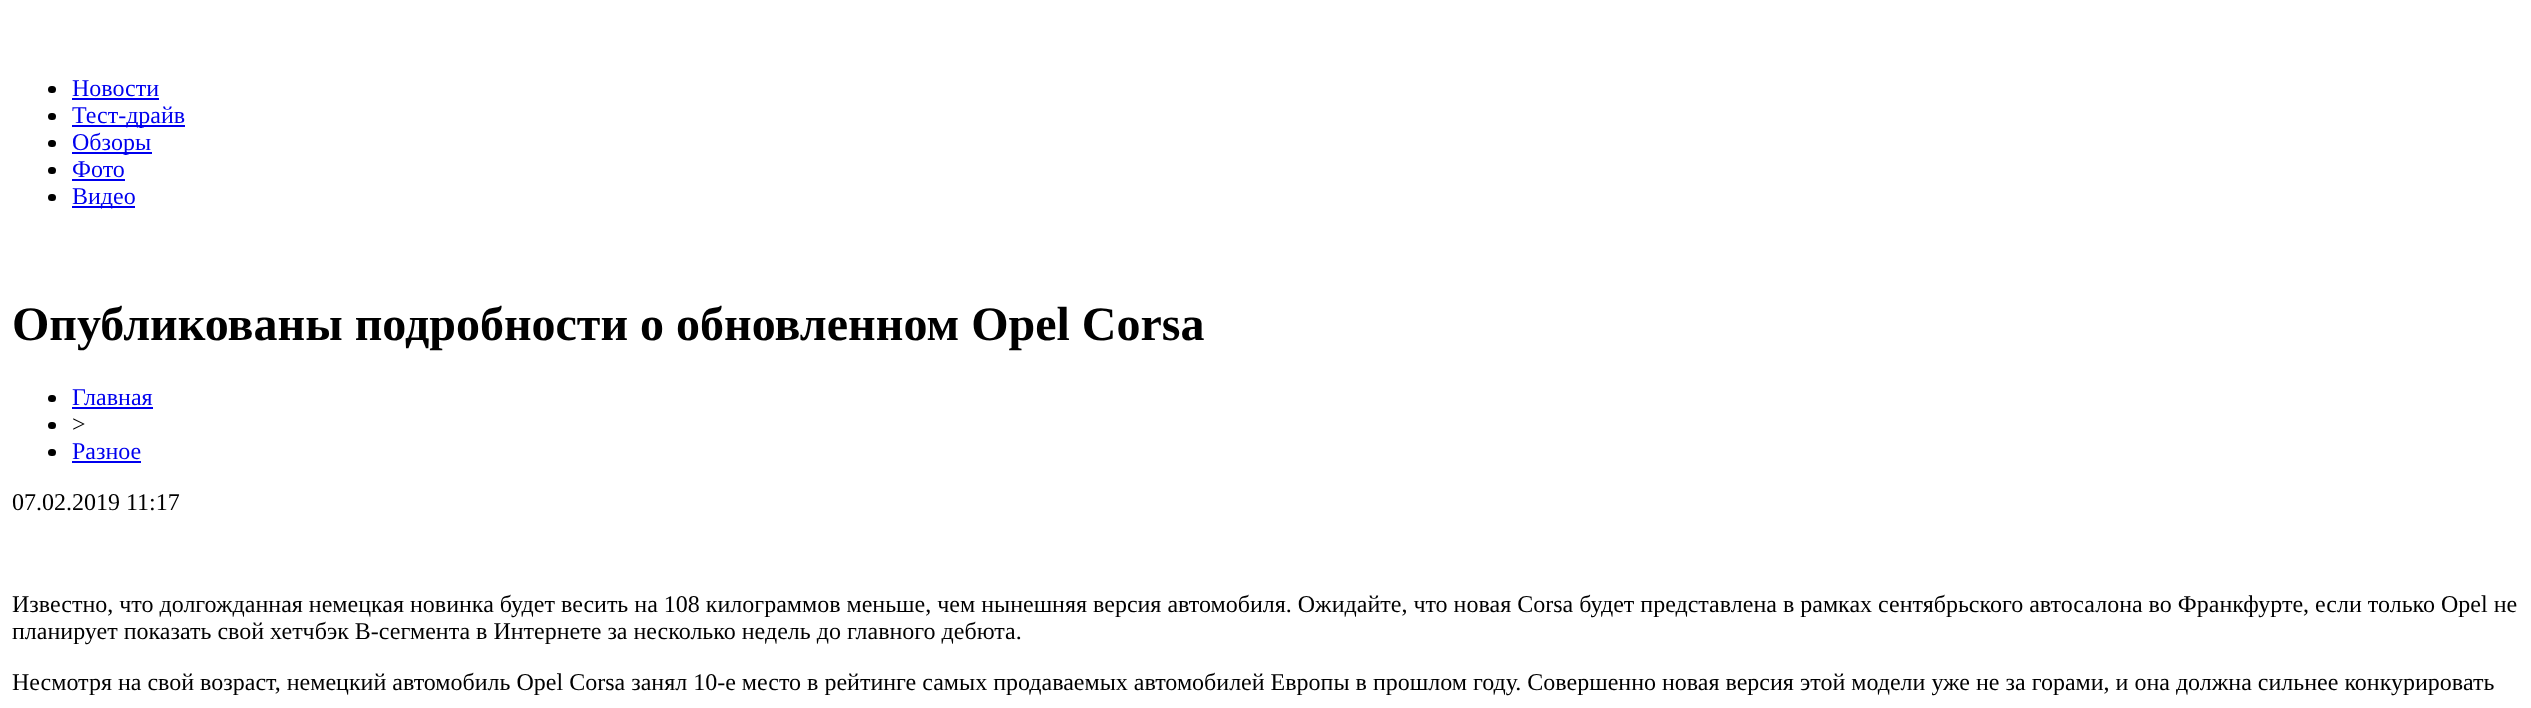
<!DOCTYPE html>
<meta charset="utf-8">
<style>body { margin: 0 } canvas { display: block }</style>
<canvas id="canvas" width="2531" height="708"></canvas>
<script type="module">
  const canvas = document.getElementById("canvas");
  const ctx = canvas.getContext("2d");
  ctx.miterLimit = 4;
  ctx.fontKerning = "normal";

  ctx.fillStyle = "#ffffff";
  ctx.fillRect(0, 0, 2531, 708);
  ctx.fillStyle = "#000000";
  ctx.beginPath();
  ctx.roundRect(48, 86, 8, 7, 3.5);
  ctx.fill();
  ctx.font = "24px Liberation Serif";
  ctx.fillStyle = "#0000ee";
  ctx.fillText("Новости", 72, 96);
  ctx.fillRect(72, 98, 87, 2);
  ctx.fillStyle = "#000000";
  ctx.beginPath();
  ctx.roundRect(48, 113, 8, 7, 3.5);
  ctx.fill();
  ctx.fillStyle = "#0000ee";
  ctx.fillRect(72, 125, 113, 2);
  ctx.fillText("Тест-драйв", 72, 123);
  ctx.fillStyle = "#000000";
  ctx.beginPath();
  ctx.roundRect(48, 140, 8, 7, 3.5);
  ctx.fill();
  ctx.fillStyle = "#0000ee";
  ctx.fillRect(72, 152, 80, 2);
  ctx.fillText("Обзоры", 72, 150);
  ctx.fillStyle = "#000000";
  ctx.beginPath();
  ctx.roundRect(48, 167, 8, 7, 3.5);
  ctx.fill();
  ctx.fillStyle = "#0000ee";
  ctx.fillText("Фото", 72, 177);
  ctx.fillRect(72, 179, 53, 2);
  ctx.fillStyle = "#000000";
  ctx.beginPath();
  ctx.roundRect(48, 194, 8, 7, 3.5);
  ctx.fill();
  ctx.fillStyle = "#0000ee";
  ctx.fillRect(72, 206, 63, 2);
  ctx.fillText("Видео", 72, 204);
  ctx.font = "bold 48px Liberation Serif";
  ctx.fillStyle = "#000000";
  ctx.fillText("Опубликованы подробности о обновленном Opel Corsa", 12, 340);
  ctx.beginPath();
  ctx.roundRect(48, 395, 8, 7, 3.5);
  ctx.fill();
  ctx.font = "24px Liberation Serif";
  ctx.fillStyle = "#0000ee";
  ctx.fillText("Главная", 72, 405);
  ctx.fillRect(72, 407, 81, 2);
  ctx.fillStyle = "#000000";
  ctx.beginPath();
  ctx.roundRect(48, 422, 8, 7, 3.5);
  ctx.fill();
  ctx.fillText(">", 72, 432);
  ctx.beginPath();
  ctx.roundRect(48, 449, 8, 7, 3.5);
  ctx.fill();
  ctx.fillStyle = "#0000ee";
  ctx.fillText("Разное", 72, 459);
  ctx.fillRect(72, 461, 69, 2);
  ctx.fillStyle = "#000000";
  ctx.fillText("07.02.2019 11:17", 12, 510);
  ctx.fillText("Известно, что долгожданная немецкая новинка будет весить на 108 килограммов меньше, чем нынешняя версия автомобиля. Ожидайте, что новая Corsa будет представлена в рамках сентябрьского автосалона во Франкфурте, если только Opel не", 12, 612);
  ctx.fillText("планирует показать свой хетчбэк B-сегмента в Интернете за несколько недель до главного дебюта.", 12, 639);
  ctx.fillText("Несмотря на свой возраст, немецкий автомобиль Opel Corsa занял 10-е место в рейтинге самых продаваемых автомобилей Европы в прошлом году. Совершенно новая версия этой модели уже не за горами, и она должна сильнее конкурировать", 12, 690);
</script>
